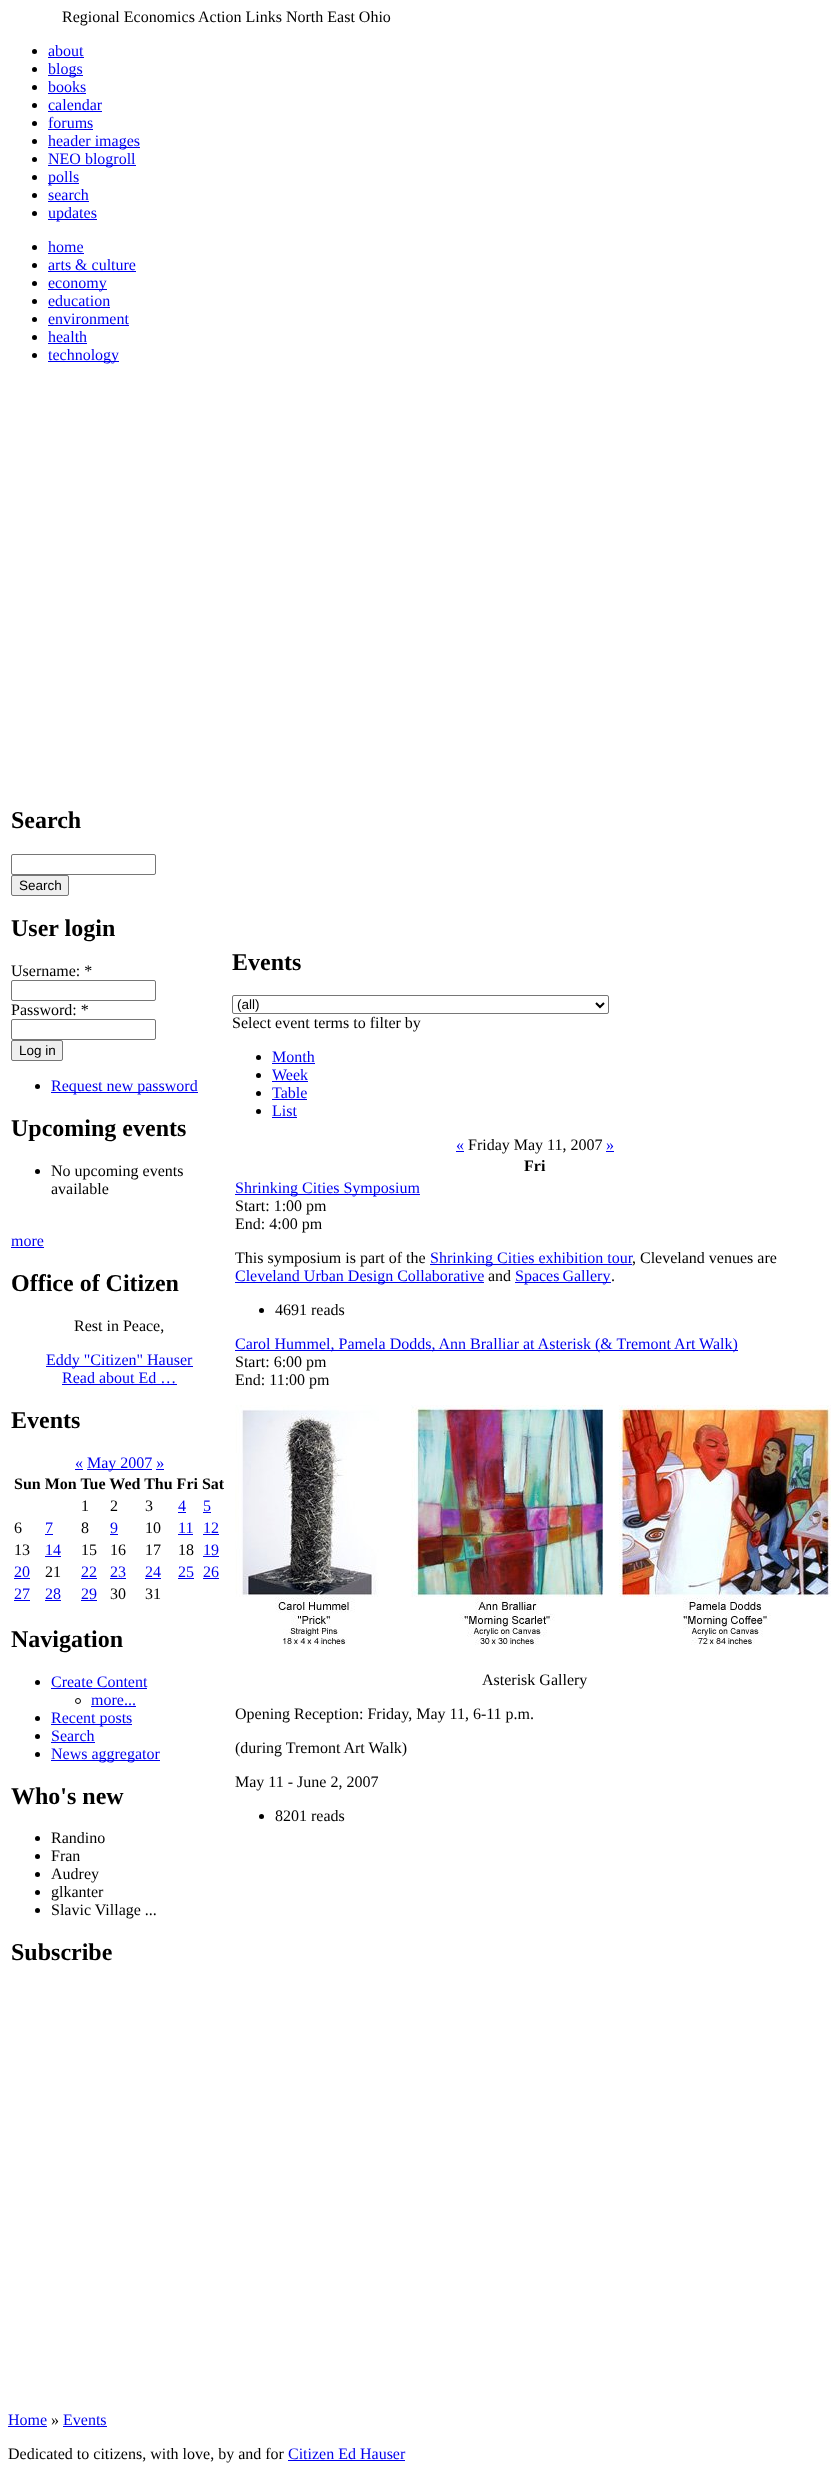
<!DOCTYPE html>
<meta charset="utf-8">
<style>body { margin: 0 } canvas { display: block }</style>
<canvas id="canvas" width="831" height="2483"></canvas>
<script type="module">
  const canvas = document.getElementById("canvas");
  const ctx = canvas.getContext("2d");
  ctx.miterLimit = 4;
  ctx.fontKerning = "normal";
  async function loadImage(src) {
    const img = new Image();
    img.src = src;
    await img.decode();
    return img;
  }

  ctx.fillStyle = "#ffffff";
  ctx.fillRect(0, 0, 831, 2483);
  ctx.font = "16px Liberation Serif";
  ctx.fillStyle = "#000000";
  ctx.fillText("Regional Economics Action Links North East Ohio", 62, 22);
  ctx.beginPath();
  ctx.arc(34.5, 51.5, 2.5, 0, Math.PI * 2);
  ctx.fill();
  ctx.fillStyle = "#0000ee";
  ctx.fillText("about", 48, 56);
  ctx.fillRect(48, 57, 36, 1);
  ctx.fillStyle = "#000000";
  ctx.beginPath();
  ctx.arc(34.5, 69.5, 2.5, 0, Math.PI * 2);
  ctx.fill();
  ctx.fillStyle = "#0000ee";
  ctx.fillRect(48, 75, 35, 1);
  ctx.fillText("blogs", 48, 74);
  ctx.fillStyle = "#000000";
  ctx.beginPath();
  ctx.arc(34.5, 87.5, 2.5, 0, Math.PI * 2);
  ctx.fill();
  ctx.fillStyle = "#0000ee";
  ctx.fillText("books", 48, 92);
  ctx.fillRect(48, 93, 38, 1);
  ctx.fillStyle = "#000000";
  ctx.beginPath();
  ctx.arc(34.5, 105.5, 2.5, 0, Math.PI * 2);
  ctx.fill();
  ctx.fillStyle = "#0000ee";
  ctx.fillText("calendar", 48, 110);
  ctx.fillRect(48, 111, 54, 1);
  ctx.fillStyle = "#000000";
  ctx.beginPath();
  ctx.arc(34.5, 123.5, 2.5, 0, Math.PI * 2);
  ctx.fill();
  ctx.fillStyle = "#0000ee";
  ctx.fillText("forums", 48, 128);
  ctx.fillRect(48, 129, 45, 1);
  ctx.fillStyle = "#000000";
  ctx.beginPath();
  ctx.arc(34.5, 141.5, 2.5, 0, Math.PI * 2);
  ctx.fill();
  ctx.fillStyle = "#0000ee";
  ctx.fillRect(48, 147, 92, 1);
  ctx.fillText("header images", 48, 146);
  ctx.fillStyle = "#000000";
  ctx.beginPath();
  ctx.arc(34.5, 159.5, 2.5, 0, Math.PI * 2);
  ctx.fill();
  ctx.fillStyle = "#0000ee";
  ctx.fillRect(48, 165, 88, 1);
  ctx.fillText("NEO blogroll", 48, 164);
  ctx.fillStyle = "#000000";
  ctx.beginPath();
  ctx.arc(34.5, 177.5, 2.5, 0, Math.PI * 2);
  ctx.fill();
  ctx.fillStyle = "#0000ee";
  ctx.fillRect(48, 183, 31, 1);
  ctx.fillText("polls", 48, 182);
  ctx.fillStyle = "#000000";
  ctx.beginPath();
  ctx.arc(34.5, 195.5, 2.5, 0, Math.PI * 2);
  ctx.fill();
  ctx.fillStyle = "#0000ee";
  ctx.fillText("search", 48, 200);
  ctx.fillRect(48, 201, 41, 1);
  ctx.fillStyle = "#000000";
  ctx.beginPath();
  ctx.arc(34.5, 213.5, 2.5, 0, Math.PI * 2);
  ctx.fill();
  ctx.fillStyle = "#0000ee";
  ctx.fillRect(48, 219, 49, 1);
  ctx.fillText("updates", 48, 218);
  ctx.fillStyle = "#000000";
  ctx.beginPath();
  ctx.arc(34.5, 247.5, 2.5, 0, Math.PI * 2);
  ctx.fill();
  ctx.fillStyle = "#0000ee";
  ctx.fillText("home", 48, 252);
  ctx.fillRect(48, 253, 36, 1);
  ctx.fillStyle = "#000000";
  ctx.beginPath();
  ctx.arc(34.5, 265.5, 2.5, 0, Math.PI * 2);
  ctx.fill();
  ctx.fillStyle = "#0000ee";
  ctx.fillText("arts & culture", 48, 270);
  ctx.fillRect(48, 271, 88, 1);
  ctx.fillStyle = "#000000";
  ctx.beginPath();
  ctx.arc(34.5, 283.5, 2.5, 0, Math.PI * 2);
  ctx.fill();
  ctx.fillStyle = "#0000ee";
  ctx.fillRect(48, 289, 59, 1);
  ctx.fillText("economy", 48, 288);
  ctx.fillStyle = "#000000";
  ctx.beginPath();
  ctx.arc(34.5, 301.5, 2.5, 0, Math.PI * 2);
  ctx.fill();
  ctx.fillStyle = "#0000ee";
  ctx.fillText("education", 48, 306);
  ctx.fillRect(48, 307, 62, 1);
  ctx.fillStyle = "#000000";
  ctx.beginPath();
  ctx.arc(34.5, 319.5, 2.5, 0, Math.PI * 2);
  ctx.fill();
  ctx.fillStyle = "#0000ee";
  ctx.fillText("environment", 48, 324);
  ctx.fillRect(48, 325, 81, 1);
  ctx.fillStyle = "#000000";
  ctx.beginPath();
  ctx.arc(34.5, 337.5, 2.5, 0, Math.PI * 2);
  ctx.fill();
  ctx.fillStyle = "#0000ee";
  ctx.fillText("health", 48, 342);
  ctx.fillRect(48, 343, 39, 1);
  ctx.fillStyle = "#000000";
  ctx.beginPath();
  ctx.arc(34.5, 355.5, 2.5, 0, Math.PI * 2);
  ctx.fill();
  ctx.fillStyle = "#0000ee";
  ctx.fillRect(48, 361, 71, 1);
  ctx.fillText("technology", 48, 360);
  ctx.font = "bold 24px Liberation Serif";
  ctx.fillStyle = "#000000";
  ctx.fillText("Search", 11, 828);
  ctx.beginPath();
  ctx.roundRect(11.5, 854.5, 144, 20, 1.5);
  ctx.strokeStyle = "#767676";
  ctx.stroke();
  ctx.fillStyle = "#efefef";
  ctx.beginPath();
  ctx.roundRect(11.5, 875.5, 57, 20, 1.5);
  ctx.fill();
  ctx.stroke();
  ctx.font = "13.5px Liberation Sans";
  ctx.fillStyle = "#000000";
  ctx.fillText("Search", 19, 890);
  ctx.font = "bold 24px Liberation Serif";
  ctx.fillText("User login", 11, 936);
  ctx.font = "16px Liberation Serif";
  ctx.fillText("Username: *", 11, 976);
  ctx.beginPath();
  ctx.roundRect(11.5, 980.5, 144, 20, 1.5);
  ctx.stroke();
  ctx.fillText("Password: *", 11, 1015);
  ctx.beginPath();
  ctx.roundRect(11.5, 1019.5, 144, 20, 1.5);
  ctx.stroke();
  ctx.fillStyle = "#efefef";
  ctx.beginPath();
  ctx.roundRect(11.5, 1040.5, 51, 20, 1.5);
  ctx.fill();
  ctx.stroke();
  ctx.font = "13.5px Liberation Sans";
  ctx.fillStyle = "#000000";
  ctx.fillText("Log in", 19, 1055);
  ctx.beginPath();
  ctx.arc(37.5, 1086.5, 2.5, 0, Math.PI * 2);
  ctx.fill();
  ctx.fillStyle = "#0000ee";
  ctx.fillRect(51, 1092, 147, 1);
  ctx.font = "16px Liberation Serif";
  ctx.fillText("Request new password", 51, 1091);
  ctx.font = "bold 24px Liberation Serif";
  ctx.fillStyle = "#000000";
  ctx.fillText("Upcoming events", 11, 1136);
  ctx.beginPath();
  ctx.arc(37.5, 1171.5, 2.5, 0, Math.PI * 2);
  ctx.fill();
  ctx.font = "16px Liberation Serif";
  ctx.fillText("No upcoming events", 51, 1176);
  ctx.fillText("available", 51, 1194);
  ctx.fillStyle = "#0000ee";
  ctx.fillText("more", 11, 1246);
  ctx.fillRect(11, 1247, 33, 1);
  ctx.font = "bold 24px Liberation Serif";
  ctx.fillStyle = "#000000";
  ctx.fillText("Office of Citizen", 11, 1291);
  ctx.font = "16px Liberation Serif";
  ctx.fillText("Rest in Peace,", 74, 1331);
  ctx.fillStyle = "#0000ee";
  ctx.fillRect(46, 1366, 147, 1);
  ctx.fillText("Eddy \"Citizen\" Hauser", 46, 1365);
  ctx.fillText("Read about Ed …", 62, 1383);
  ctx.fillRect(62, 1384, 115, 1);
  ctx.font = "bold 24px Liberation Serif";
  ctx.fillStyle = "#000000";
  ctx.fillText("Events", 11, 1428);
  ctx.font = "16px Liberation Serif";
  ctx.fillStyle = "#0000ee";
  ctx.fillText("«", 75, 1468);
  ctx.fillRect(75, 1469, 8, 1);
  ctx.fillRect(87, 1469, 65, 1);
  ctx.fillText("May 2007 »", 87, 1468);
  ctx.fillRect(156, 1469, 8, 1);
  ctx.font = "bold 16px Liberation Serif";
  ctx.fillStyle = "#000000";
  ctx.fillText("Sun Mon Tue Wed Thu Fri Sat", 14, 1489);
  ctx.font = "16px Liberation Serif";
  ctx.fillText("1", 81, 1511);
  ctx.fillText("2", 110, 1511);
  ctx.fillText("3", 145, 1511);
  ctx.fillStyle = "#0000ee";
  ctx.fillText("4", 178, 1511);
  ctx.fillRect(178, 1512, 8, 1);
  ctx.fillText("5", 203, 1511);
  ctx.fillRect(203, 1512, 8, 1);
  ctx.fillStyle = "#000000";
  ctx.fillText("6", 14, 1533);
  ctx.fillStyle = "#0000ee";
  ctx.fillText("7", 45, 1533);
  ctx.fillRect(45, 1534, 8, 1);
  ctx.fillStyle = "#000000";
  ctx.fillText("8", 81, 1533);
  ctx.fillStyle = "#0000ee";
  ctx.fillText("9", 110, 1533);
  ctx.fillRect(110, 1534, 8, 1);
  ctx.fillStyle = "#000000";
  ctx.fillText("10", 145, 1533);
  ctx.fillStyle = "#0000ee";
  ctx.fillText("11", 178, 1533);
  ctx.fillRect(178, 1534, 15, 1);
  ctx.fillText("12", 203, 1533);
  ctx.fillRect(203, 1534, 16, 1);
  ctx.fillStyle = "#000000";
  ctx.fillText("13", 14, 1555);
  ctx.fillStyle = "#0000ee";
  ctx.fillText("14", 45, 1555);
  ctx.fillRect(45, 1556, 16, 1);
  ctx.fillStyle = "#000000";
  ctx.fillText("15", 81, 1555);
  ctx.fillText("16", 110, 1555);
  ctx.fillText("17", 145, 1555);
  ctx.fillText("18", 178, 1555);
  ctx.fillStyle = "#0000ee";
  ctx.fillText("19", 203, 1555);
  ctx.fillRect(203, 1556, 16, 1);
  ctx.fillText("20", 14, 1577);
  ctx.fillRect(14, 1578, 16, 1);
  ctx.fillStyle = "#000000";
  ctx.fillText("21", 45, 1577);
  ctx.fillStyle = "#0000ee";
  ctx.fillText("22", 81, 1577);
  ctx.fillRect(81, 1578, 16, 1);
  ctx.fillText("23", 110, 1577);
  ctx.fillRect(110, 1578, 16, 1);
  ctx.fillText("24", 145, 1577);
  ctx.fillRect(145, 1578, 16, 1);
  ctx.fillText("25", 178, 1577);
  ctx.fillRect(178, 1578, 16, 1);
  ctx.fillText("26", 203, 1577);
  ctx.fillRect(203, 1578, 16, 1);
  ctx.fillText("27", 14, 1599);
  ctx.fillRect(14, 1600, 16, 1);
  ctx.fillText("28", 45, 1599);
  ctx.fillRect(45, 1600, 16, 1);
  ctx.fillText("29", 81, 1599);
  ctx.fillRect(81, 1600, 16, 1);
  ctx.fillStyle = "#000000";
  ctx.fillText("30", 110, 1599);
  ctx.fillText("31", 145, 1599);
  ctx.font = "bold 24px Liberation Serif";
  ctx.fillText("Navigation", 11, 1647);
  ctx.beginPath();
  ctx.arc(37.5, 1682.5, 2.5, 0, Math.PI * 2);
  ctx.fill();
  ctx.font = "16px Liberation Serif";
  ctx.fillStyle = "#0000ee";
  ctx.fillText("Create Content", 51, 1687);
  ctx.fillRect(51, 1688, 96, 1);
  ctx.beginPath();
  ctx.arc(78, 1701, 2.5, 0, Math.PI * 2);
  ctx.strokeStyle = "#000000";
  ctx.stroke();
  ctx.fillText("more...", 91, 1705);
  ctx.fillRect(91, 1706, 45, 1);
  ctx.fillStyle = "#000000";
  ctx.beginPath();
  ctx.arc(37.5, 1718.5, 2.5, 0, Math.PI * 2);
  ctx.fill();
  ctx.fillStyle = "#0000ee";
  ctx.fillRect(51, 1724, 81, 1);
  ctx.fillText("Recent posts", 51, 1723);
  ctx.fillStyle = "#000000";
  ctx.beginPath();
  ctx.arc(37.5, 1736.5, 2.5, 0, Math.PI * 2);
  ctx.fill();
  ctx.fillStyle = "#0000ee";
  ctx.fillText("Search", 51, 1741);
  ctx.fillRect(51, 1742, 44, 1);
  ctx.fillStyle = "#000000";
  ctx.beginPath();
  ctx.arc(37.5, 1754.5, 2.5, 0, Math.PI * 2);
  ctx.fill();
  ctx.fillStyle = "#0000ee";
  ctx.fillRect(51, 1760, 109, 1);
  ctx.fillText("News aggregator", 51, 1759);
  ctx.font = "bold 24px Liberation Serif";
  ctx.fillStyle = "#000000";
  ctx.fillText("Who's new", 11, 1804);
  ctx.beginPath();
  ctx.arc(37.5, 1838.5, 2.5, 0, Math.PI * 2);
  ctx.fill();
  ctx.font = "16px Liberation Serif";
  ctx.fillText("Randino", 51, 1843);
  ctx.beginPath();
  ctx.arc(37.5, 1856.5, 2.5, 0, Math.PI * 2);
  ctx.fill();
  ctx.fillText("Fran", 51, 1861);
  ctx.beginPath();
  ctx.arc(37.5, 1874.5, 2.5, 0, Math.PI * 2);
  ctx.fill();
  ctx.fillText("Audrey", 51, 1879);
  ctx.beginPath();
  ctx.arc(37.5, 1892.5, 2.5, 0, Math.PI * 2);
  ctx.fill();
  ctx.fillText("glkanter", 51, 1897);
  ctx.beginPath();
  ctx.arc(37.5, 1910.5, 2.5, 0, Math.PI * 2);
  ctx.fill();
  ctx.fillText("Slavic Village ...", 51, 1915);
  ctx.font = "bold 24px Liberation Serif";
  ctx.fillText("Subscribe", 11, 1960);
  ctx.fillText("Events", 232, 970);
  ctx.beginPath();
  ctx.roundRect(232.5, 995.5, 376, 18, 1.5);
  ctx.strokeStyle = "#767676";
  ctx.stroke();
  ctx.beginPath();
  ctx.moveTo(596, 1003);
  ctx.lineTo(600, 1007);
  ctx.lineTo(604, 1003);
  ctx.strokeStyle = "#000000";
  ctx.lineWidth = 2;
  ctx.stroke();
  ctx.font = "13.5px Liberation Sans";
  ctx.fillText("(all)", 237, 1009);
  ctx.font = "16px Liberation Serif";
  ctx.fillText("Select event terms to filter by", 232, 1028);
  ctx.beginPath();
  ctx.arc(258.5, 1057.5, 2.5, 0, Math.PI * 2);
  ctx.fill();
  ctx.fillStyle = "#0000ee";
  ctx.fillText("Month", 272, 1062);
  ctx.fillRect(272, 1063, 43, 1);
  ctx.fillStyle = "#000000";
  ctx.beginPath();
  ctx.arc(258.5, 1075.5, 2.5, 0, Math.PI * 2);
  ctx.fill();
  ctx.fillStyle = "#0000ee";
  ctx.fillText("Week", 272, 1080);
  ctx.fillRect(272, 1081, 36, 1);
  ctx.fillStyle = "#000000";
  ctx.beginPath();
  ctx.arc(258.5, 1093.5, 2.5, 0, Math.PI * 2);
  ctx.fill();
  ctx.fillStyle = "#0000ee";
  ctx.fillText("Table", 272, 1098);
  ctx.fillRect(272, 1099, 35, 1);
  ctx.fillStyle = "#000000";
  ctx.beginPath();
  ctx.arc(258.5, 1111.5, 2.5, 0, Math.PI * 2);
  ctx.fill();
  ctx.fillStyle = "#0000ee";
  ctx.fillText("List", 272, 1116);
  ctx.fillRect(272, 1117, 25, 1);
  ctx.fillText("«", 456, 1150);
  ctx.fillRect(456, 1151, 8, 1);
  ctx.fillStyle = "#000000";
  ctx.fillText("Friday May 11, 2007", 468, 1150);
  ctx.fillStyle = "#0000ee";
  ctx.fillText("»", 606, 1150);
  ctx.fillRect(606, 1151, 8, 1);
  ctx.font = "bold 16px Liberation Serif";
  ctx.fillStyle = "#000000";
  ctx.fillText("Fri", 524, 1171);
  ctx.fillStyle = "#0000ee";
  ctx.fillRect(235, 1194, 185, 1);
  ctx.font = "16px Liberation Serif";
  ctx.fillText("Shrinking Cities Symposium", 235, 1193);
  ctx.fillStyle = "#000000";
  ctx.fillText("Start: 1:00 pm", 235, 1211);
  ctx.fillText("End: 4:00 pm", 235, 1229);
  ctx.fillText("This symposium is part of the", 235, 1263);
  ctx.fillStyle = "#0000ee";
  ctx.fillRect(430, 1264, 202, 1);
  ctx.fillText("Shrinking Cities exhibition tour", 430, 1263);
  ctx.fillStyle = "#000000";
  ctx.fillText(", Cleveland venues are", 632, 1263);
  ctx.fillStyle = "#0000ee";
  ctx.fillRect(235, 1282, 249, 1);
  ctx.fillText("Cleveland Urban Design Collaborative", 235, 1281);
  ctx.fillStyle = "#000000";
  ctx.fillText("and", 488, 1281);
  ctx.fillStyle = "#0000ee";
  ctx.fillRect(515, 1282, 96, 1);
  ctx.wordSpacing = "-1px";
  ctx.fillText("Spaces Gallery", 515, 1281);
  ctx.wordSpacing = "0px";
  ctx.fillStyle = "#000000";
  ctx.fillText(".", 611, 1281);
  ctx.beginPath();
  ctx.arc(261.5, 1310.5, 2.5, 0, Math.PI * 2);
  ctx.fill();
  ctx.fillText("4691 reads", 275, 1315);
  ctx.fillStyle = "#0000ee";
  ctx.fillRect(235, 1350, 503, 1);
  ctx.fillText("Carol Hummel, Pamela Dodds, Ann Bralliar at Asterisk (& Tremont Art Walk)", 235, 1349);
  ctx.fillStyle = "#000000";
  ctx.fillText("Start: 6:00 pm", 235, 1367);
  ctx.fillText("End: 11:00 pm", 235, 1385);
  ctx.drawImage(await loadImage("img1.png"), 235, 1405, 596, 240);
  ctx.fillText("Asterisk Gallery", 482, 1685);
  ctx.fillText("Opening Reception: Friday, May 11, 6-11 p.m.", 235, 1719);
  ctx.fillText("(during Tremont Art Walk)", 235, 1753);
  ctx.fillText("May 11 - June 2, 2007", 235, 1787);
  ctx.beginPath();
  ctx.arc(261.5, 1816.5, 2.5, 0, Math.PI * 2);
  ctx.fill();
  ctx.fillText("8201 reads", 275, 1821);
  ctx.fillStyle = "#0000ee";
  ctx.fillText("Home", 8, 2425);
  ctx.fillRect(8, 2426, 39, 1);
  ctx.fillStyle = "#000000";
  ctx.fillText("»", 51, 2425);
  ctx.fillStyle = "#0000ee";
  ctx.fillText("Events", 63, 2425);
  ctx.fillRect(63, 2426, 44, 1);
  ctx.fillStyle = "#000000";
  ctx.fillText("Dedicated to citizens, with love, by and for", 8, 2459);
  ctx.fillStyle = "#0000ee";
  ctx.fillText("Citizen Ed Hauser", 288, 2459);
  ctx.fillRect(288, 2460, 117, 1);
</script>
